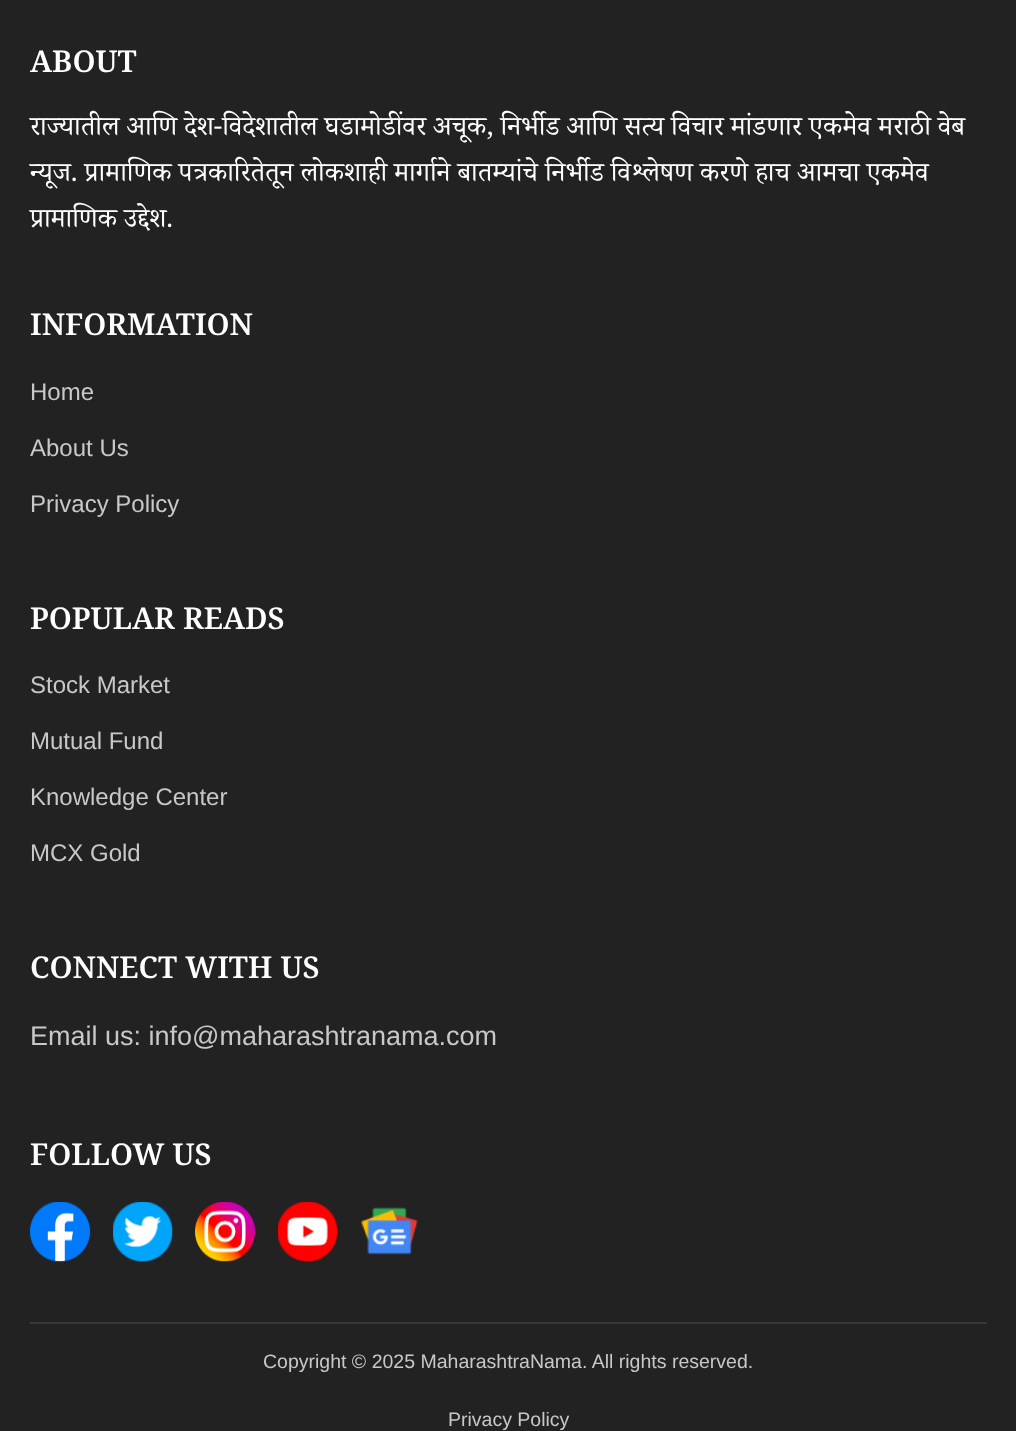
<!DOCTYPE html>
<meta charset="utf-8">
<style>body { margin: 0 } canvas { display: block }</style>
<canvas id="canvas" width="1016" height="1431"></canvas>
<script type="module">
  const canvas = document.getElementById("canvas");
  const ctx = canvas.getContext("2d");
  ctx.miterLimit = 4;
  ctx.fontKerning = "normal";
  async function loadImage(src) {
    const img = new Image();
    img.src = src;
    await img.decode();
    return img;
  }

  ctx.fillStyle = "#222222";
  ctx.fillRect(0, 0, 1016, 1431);
  ctx.fillStyle = "#383838";
  ctx.fillRect(30, 1322, 957, 2);
  ctx.font = "600 30px Noto Serif Devanagari";
  ctx.fillStyle = "#ffffff";
  ctx.fillText("ABOUT", 30, 72);
  ctx.font = "27px Noto Serif Devanagari";
  ctx.fillText("राज्यातील आणि देश-विदेशातील घडामोडींवर अचूक, निर्भीड आणि सत्य विचार मांडणार एकमेव मराठी वेब", 30, 135);
  ctx.fillText("न्यूज. प्रामाणिक पत्रकारितेतून लोकशाही मार्गाने बातम्यांचे निर्भीड विश्लेषण करणे हाच आमचा एकमेव", 30, 181);
  ctx.fillText("प्रामाणिक उद्देश.", 30, 227);
  ctx.font = "600 30px Noto Serif Devanagari";
  ctx.fillText("INFORMATION", 30, 335);
  ctx.font = "24px Liberation Sans";
  ctx.fillStyle = "#c8c8c8";
  ctx.fillText("Home", 30, 400);
  ctx.fillText("About Us", 30, 456);
  ctx.fillText("Privacy Policy", 30, 512);
  ctx.font = "600 30px Noto Serif Devanagari";
  ctx.fillStyle = "#ffffff";
  ctx.fillText("POPULAR READS", 30, 629);
  ctx.font = "24px Liberation Sans";
  ctx.fillStyle = "#c8c8c8";
  ctx.fillText("Stock Market", 30, 693);
  ctx.fillText("Mutual Fund", 30, 749);
  ctx.fillText("Knowledge Center", 30, 805);
  ctx.fillText("MCX Gold", 30, 861);
  ctx.font = "600 30px Noto Serif Devanagari";
  ctx.fillStyle = "#ffffff";
  ctx.fillText("CONNECT WITH US", 30, 978);
  ctx.font = "27px Liberation Sans";
  ctx.fillStyle = "#c8c8c8";
  ctx.fillText("Email us: info@maharashtranama.com", 30, 1045);
  ctx.font = "600 30px Noto Serif Devanagari";
  ctx.fillStyle = "#ffffff";
  ctx.fillText("FOLLOW US", 30, 1165);
  ctx.drawImage(await loadImage("img1.png"), 30, 1202, 60, 60);
  ctx.drawImage(await loadImage("img2.png"), 113, 1202, 60, 60);
  ctx.drawImage(await loadImage("img3.png"), 195, 1202, 60, 60);
  ctx.drawImage(await loadImage("img4.png"), 278, 1202, 60, 60);
  ctx.drawImage(await loadImage("img5.png"), 361, 1207, 57, 48);
  ctx.font = "19.5px Liberation Sans";
  ctx.fillStyle = "#c8c8c8";
  ctx.fillText("Copyright © 2025 MaharashtraNama. All rights reserved.", 263, 1368);
  ctx.fillText("Privacy Policy", 448, 1426);
</script>
